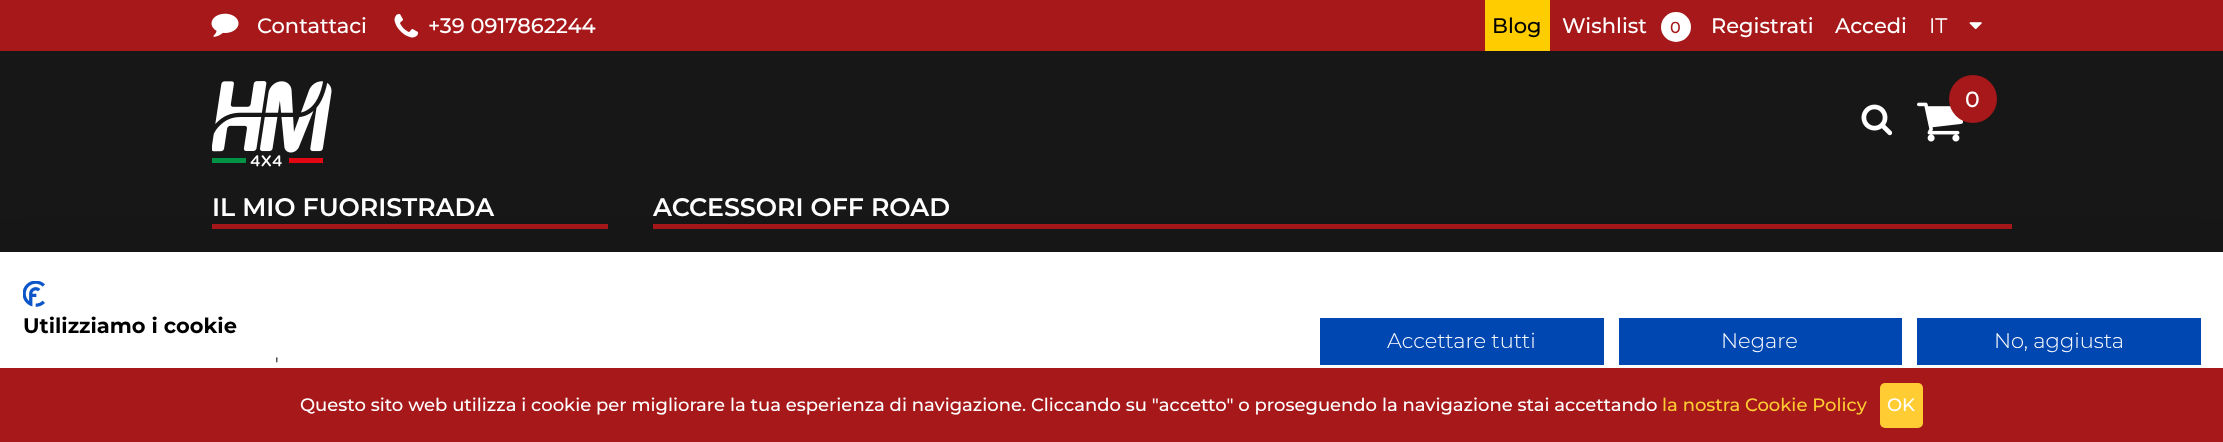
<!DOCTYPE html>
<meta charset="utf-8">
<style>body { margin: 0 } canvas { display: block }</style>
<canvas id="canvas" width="2223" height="442"></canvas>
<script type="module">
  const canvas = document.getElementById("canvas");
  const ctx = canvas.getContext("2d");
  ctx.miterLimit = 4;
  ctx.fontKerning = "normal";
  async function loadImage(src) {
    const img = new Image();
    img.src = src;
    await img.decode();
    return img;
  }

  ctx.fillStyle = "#a61819";
  ctx.fillRect(0, 0, 2223, 442);
  ctx.drawImage(await loadImage("img1.png"), 211, 13, 28, 24);
  ctx.font = "500 21px Montserrat";
  ctx.fillStyle = "#ffffff";
  ctx.fillText("Contattaci", 257, 33);
  ctx.drawImage(await loadImage("img2.png"), 394, 13, 25, 25);
  ctx.fillText("+39 0917862244", 428, 33);
  ctx.fillStyle = "#ffcc00";
  ctx.fillRect(1485, 0, 65, 51);
  ctx.fillStyle = "#000000";
  ctx.fillText("Blog", 1492, 33);
  ctx.fillStyle = "#ffffff";
  ctx.fillText("Wishlist", 1562, 33);
  ctx.beginPath();
  ctx.arc(1676, 27, 15, 0, Math.PI * 2);
  ctx.fill();
  ctx.font = "500 16px Montserrat";
  ctx.fillStyle = "#a61819";
  ctx.fillText("0", 1670, 33);
  ctx.font = "500 21px Montserrat";
  ctx.fillStyle = "#ffffff";
  ctx.fillText("Registrati", 1711, 33);
  ctx.fillText("Accedi", 1835, 33);
  ctx.font = "21px Montserrat";
  ctx.fillText("IT", 1929, 33);
  ctx.drawImage(await loadImage("img3.png"), 1969, 22, 13, 8);
  ctx.fillStyle = "#171717";
  ctx.fillRect(0, 51, 2223, 201);
  ctx.drawImage(await loadImage("img4.png"), 212, 81, 120, 86);
  ctx.drawImage(await loadImage("img5.png"), 1917, 102, 46, 40);
  ctx.fillStyle = "#a61819";
  ctx.beginPath();
  ctx.arc(1973, 99, 24, 0, Math.PI * 2);
  ctx.fill();
  ctx.font = "500 22px Montserrat";
  ctx.fillStyle = "#ffffff";
  ctx.fillText("0", 1965, 107);
  ctx.drawImage(await loadImage("img6.png"), 1861, 104, 31, 32);
  ctx.font = "600 25.25px Montserrat";
  ctx.fillText("IL MIO FUORISTRADA", 212, 216);
  ctx.fillStyle = "#a61819";
  ctx.fillRect(212, 224, 396, 5);
  ctx.fillStyle = "#ffffff";
  ctx.fillText("ACCESSORI OFF ROAD", 653, 216);
  ctx.fillStyle = "#a61819";
  ctx.fillRect(653, 224, 1359, 5);
  ctx.fillStyle = "rgba(0, 0, 0, 0.1)";
  ctx.filter = "blur(18px)";
  ctx.beginPath();
  ctx.rect(0, 252, 2223, 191);
  ctx.fill();
  ctx.filter = "none";
  ctx.fillStyle = "#ffffff";
  ctx.fillRect(0, 252, 2223, 116);
  ctx.drawImage(await loadImage("img7.png"), 23, 281, 22, 26);
  ctx.font = "bold 21px Montserrat";
  ctx.fillStyle = "#000000";
  ctx.fillText("Utilizziamo i cookie", 23, 333);
  ctx.wordSpacing = "1px";
  ctx.font = "18px Montserrat";
  ctx.fillText("'", 275, 370);
  ctx.fillStyle = "#0047b2";
  ctx.fillRect(1320, 318, 284, 47);
  ctx.wordSpacing = "0px";
  ctx.font = "300 21px Montserrat";
  ctx.fillStyle = "#ffffff";
  ctx.fillText("Accettare tutti", 1387, 348);
  ctx.fillStyle = "#0047b2";
  ctx.fillRect(1619, 318, 283, 47);
  ctx.fillStyle = "#ffffff";
  ctx.fillText("Negare", 1721, 348);
  ctx.fillStyle = "#0047b2";
  ctx.fillRect(1917, 318, 284, 47);
  ctx.fillStyle = "#ffffff";
  ctx.fillText("No, aggiusta", 1994, 348);
  ctx.fillStyle = "#a61819";
  ctx.fillRect(0, 368, 2223, 74);
  ctx.font = "500 18px Montserrat";
  ctx.fillStyle = "#ffffff";
  ctx.fillText("Questo sito web utilizza i cookie per migliorare la tua esperienza di navigazione. Cliccando su \"accetto\" o proseguendo la navigazione stai accettando", 300, 411);
  ctx.fillStyle = "#ffcc34";
  ctx.fillText("la nostra Cookie Policy", 1662, 411);
  ctx.beginPath();
  ctx.roundRect(1880, 383, 43, 45, 5);
  ctx.fill();
  ctx.fillStyle = "#ffffff";
  ctx.fillText("OK", 1887, 411);
</script>
